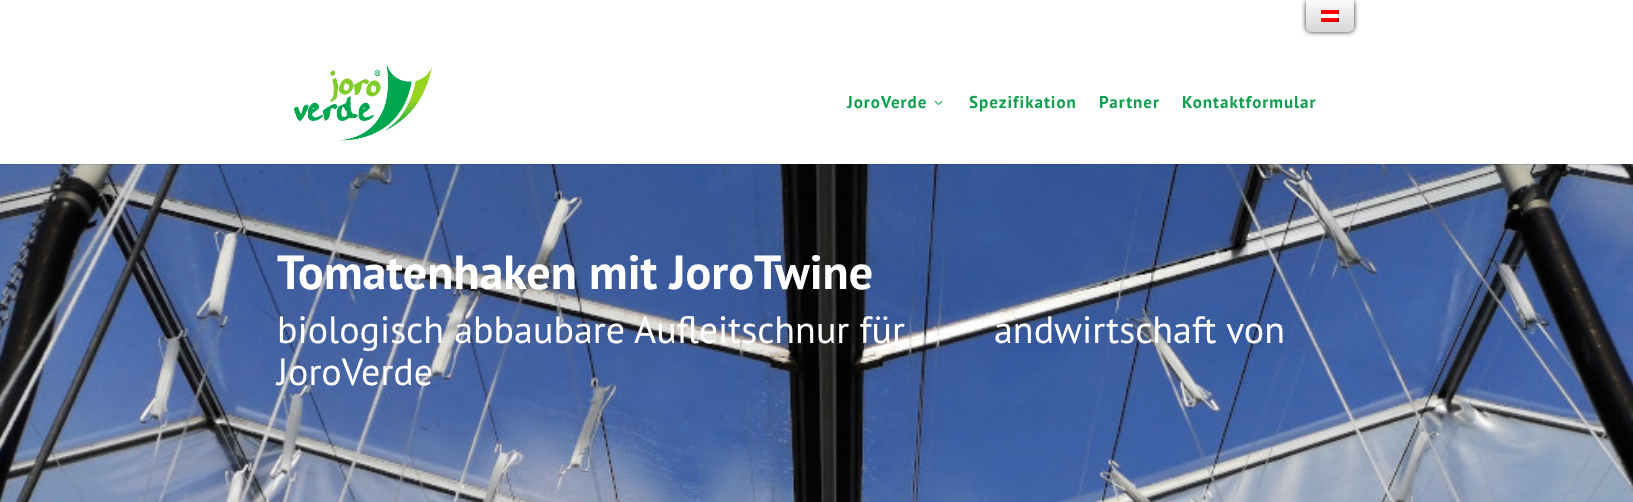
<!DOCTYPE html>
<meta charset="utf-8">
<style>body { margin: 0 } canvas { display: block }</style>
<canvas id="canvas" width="1633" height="502"></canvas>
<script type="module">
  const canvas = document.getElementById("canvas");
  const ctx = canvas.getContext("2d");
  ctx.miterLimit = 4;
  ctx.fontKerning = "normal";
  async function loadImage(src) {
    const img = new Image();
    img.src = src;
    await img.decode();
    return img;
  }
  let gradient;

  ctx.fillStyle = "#ffffff";
  ctx.fillRect(0, 0, 1633, 502);
  ctx.fillStyle = "#212121";
  ctx.filter = "blur(2.5px)";
  ctx.beginPath();
  ctx.roundRect(1306, 0, 48, 32, 5);
  ctx.fill();
  ctx.filter = "none";
  gradient = ctx.createLinearGradient(1330, 32, 1330, 0);
  gradient.addColorStop(0, "#d6d6d6");
  gradient.addColorStop(1, "#fafafa");
  ctx.fillStyle = gradient;
  ctx.beginPath();
  ctx.roundRect(1306, 0, 48, 32, [0, 0, 5, 5]);
  ctx.fill();
  ctx.drawImage(await loadImage("img1.png"), 1321, 10, 18, 12);
  ctx.drawImage(await loadImage("img4.png"), 0, 164, 1633, 338);
  ctx.fillStyle = "rgba(0, 0, 0, 0.1)";
  ctx.fillRect(0, 164, 1633, 1);
  ctx.drawImage(await loadImage("img2.png"), 293, 63, 140, 78);
  ctx.letterSpacing = "1px";
  ctx.font = "bold 17px PT Sans";
  ctx.fillStyle = "#0f9f4e";
  ctx.fillText("JoroVerde", 847, 108);
  ctx.drawImage(await loadImage("img3.png"), 934, 100, 9, 5);
  ctx.fillText("Spezifikation", 969, 108);
  ctx.fillText("Partner", 1099, 108);
  ctx.fillText("Kontaktformular", 1182, 108);
  ctx.letterSpacing = "0px";
  ctx.font = "bold 48px PT Sans";
  ctx.fillStyle = "#ffffff";
  ctx.fillText("Tomatenhaken mit JoroTwine", 277, 289);
  ctx.font = "38px PT Sans";
  ctx.fillText("biologisch abbaubare Aufleitschnur für", 277, 343);
  ctx.fillText("andwirtschaft von", 994, 343);
  ctx.fillText("JoroVerde", 277, 385);
</script>
